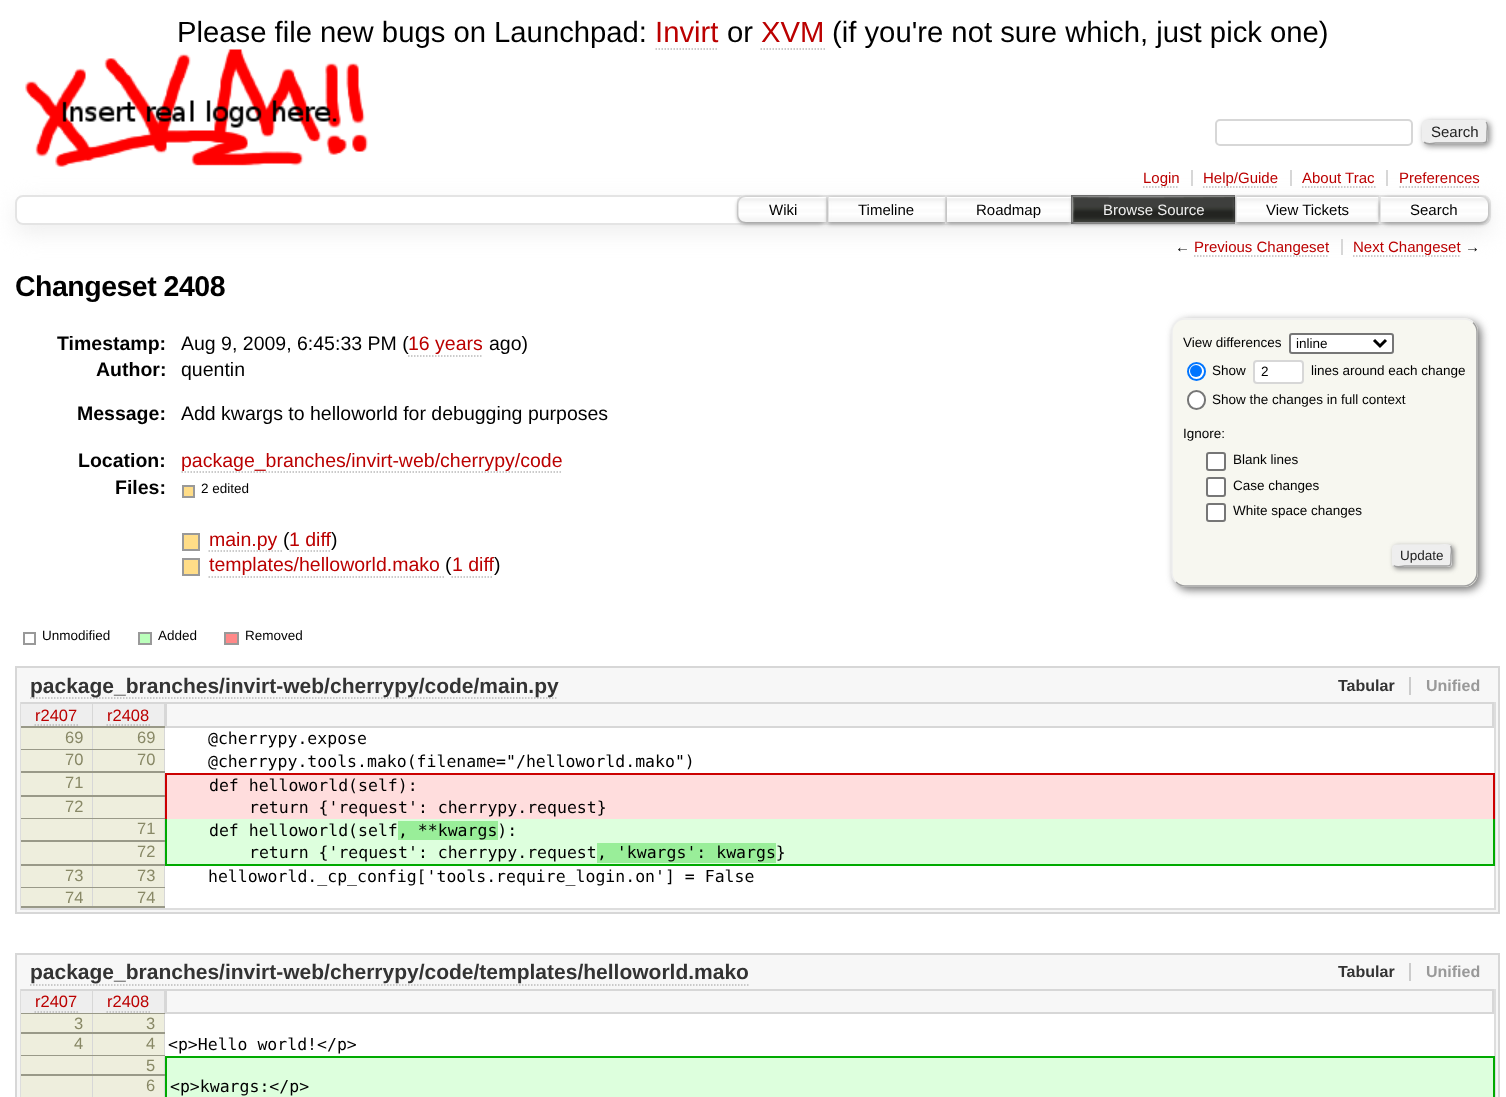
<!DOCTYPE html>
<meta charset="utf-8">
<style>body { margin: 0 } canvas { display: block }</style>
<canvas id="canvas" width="1506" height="1097"></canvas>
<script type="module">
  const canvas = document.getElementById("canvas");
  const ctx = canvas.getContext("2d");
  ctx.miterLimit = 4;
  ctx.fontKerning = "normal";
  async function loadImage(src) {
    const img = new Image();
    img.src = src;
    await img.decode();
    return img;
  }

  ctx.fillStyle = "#ffffff";
  ctx.fillRect(0, 0, 1506, 1097);
  ctx.font = "29.25px Liberation Sans";
  ctx.fillStyle = "#000000";
  ctx.fillText("Please file new bugs on Launchpad:", 177, 42);
  ctx.fillStyle = "#bb0000";
  ctx.fillText("Invirt", 655, 42);
  ctx.beginPath();
  ctx.moveTo(655.5, 49);
  ctx.lineTo(718.5, 49);
  ctx.strokeStyle = "#bbbbbb";
  ctx.lineWidth = 1.5;
  ctx.setLineDash([1.5, 1.5]);
  ctx.stroke();
  ctx.fillStyle = "#000000";
  ctx.fillText("or", 727, 42);
  ctx.fillStyle = "#bb0000";
  ctx.fillText("XVM", 761, 42);
  ctx.beginPath();
  ctx.moveTo(760.5, 49);
  ctx.lineTo(825, 49);
  ctx.stroke();
  ctx.fillStyle = "#000000";
  ctx.fillText("(if you're not sure which, just pick one)", 832, 42);
  ctx.drawImage(await loadImage("img1.png"), 25, 49, 343, 118);
  ctx.beginPath();
  ctx.roundRect(1216, 120, 196, 25, 4);
  ctx.strokeStyle = "#d7d7d7";
  ctx.lineWidth = 2;
  ctx.setLineDash([]);
  ctx.stroke();
  ctx.fillStyle = "#888888";
  ctx.filter = "blur(3px)";
  ctx.beginPath();
  ctx.roundRect(1424, 122, 66, 24, 5);
  ctx.fill();
  ctx.filter = "none";
  ctx.fillStyle = "#eeeeee";
  ctx.beginPath();
  ctx.roundRect(1422, 120, 66, 24, 5);
  ctx.fill();
  ctx.beginPath();
  ctx.moveTo(1486, 122);
  ctx.bezierCurveTo(1488.5, 124, 1487, 129, 1487, 132);
  ctx.bezierCurveTo(1487, 145, 1488, 143, 1474, 143);
  ctx.lineTo(1436, 143);
  ctx.bezierCurveTo(1435.5, 143, 1426.5, 145, 1424, 142);
  ctx.strokeStyle = "#9f9f9f";
  ctx.lineWidth = 1.5;
  ctx.stroke();
  ctx.beginPath();
  ctx.moveTo(1424, 142);
  ctx.bezierCurveTo(1421.5, 140, 1423, 135, 1423, 132);
  ctx.bezierCurveTo(1423, 119, 1422, 121, 1436, 121);
  ctx.lineTo(1474, 121);
  ctx.bezierCurveTo(1474.5, 121, 1483.5, 119, 1486, 122);
  ctx.strokeStyle = "#eeeeee";
  ctx.stroke();
  ctx.font = "15px Liberation Sans";
  ctx.fillStyle = "#222222";
  ctx.fillText("Search", 1431, 137);
  ctx.save();
  ctx.beginPath();
  ctx.moveTo(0, 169);
  ctx.lineTo(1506, 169);
  ctx.lineTo(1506, 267);
  ctx.lineTo(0, 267);
  ctx.closePath();
  ctx.moveTo(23, 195);
  ctx.lineTo(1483, 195);
  ctx.bezierCurveTo(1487.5, 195, 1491, 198.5, 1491, 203);
  ctx.lineTo(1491, 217);
  ctx.bezierCurveTo(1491, 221.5, 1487.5, 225, 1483, 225);
  ctx.lineTo(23, 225);
  ctx.bezierCurveTo(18.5, 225, 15, 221.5, 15, 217);
  ctx.lineTo(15, 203);
  ctx.bezierCurveTo(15, 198.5, 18.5, 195, 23, 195);
  ctx.closePath();
  ctx.clip("evenodd");
  ctx.fillStyle = "#eeeeee";
  ctx.filter = "blur(11px)";
  ctx.beginPath();
  ctx.roundRect(15, 203, 1476, 30, 8);
  ctx.fill();
  ctx.filter = "none";
  ctx.restore();
  ctx.fillStyle = "#d7d7d7";
  ctx.fillRect(1191, 170, 2, 16);
  ctx.beginPath();
  ctx.moveTo(1143, 187);
  ctx.lineTo(1179, 187);
  ctx.strokeStyle = "#bbbbbb";
  ctx.setLineDash([1.5, 1.5]);
  ctx.stroke();
  ctx.fillStyle = "#bb0000";
  ctx.fillText("Login", 1143, 183);
  ctx.fillStyle = "#d7d7d7";
  ctx.fillRect(1290, 170, 2, 16);
  ctx.beginPath();
  ctx.moveTo(1203, 187);
  ctx.lineTo(1278, 187);
  ctx.stroke();
  ctx.fillStyle = "#bb0000";
  ctx.fillText("Help/Guide", 1203, 183);
  ctx.fillStyle = "#d7d7d7";
  ctx.fillRect(1386, 170, 2, 16);
  ctx.fillStyle = "#bb0000";
  ctx.fillText("About Trac", 1302, 183);
  ctx.beginPath();
  ctx.moveTo(1302, 187);
  ctx.lineTo(1375.5, 187);
  ctx.stroke();
  ctx.fillText("Preferences", 1399, 183);
  ctx.beginPath();
  ctx.moveTo(1399.5, 187);
  ctx.lineTo(1480.5, 187);
  ctx.stroke();
  ctx.beginPath();
  ctx.roundRect(16, 196, 1474, 28, 7);
  ctx.strokeStyle = "#e4e4e4";
  ctx.lineWidth = 2;
  ctx.setLineDash([]);
  ctx.stroke();
  ctx.fillStyle = "#ffffff";
  ctx.beginPath();
  ctx.roundRect(737, 195, 91, 29, [8, 0, 0, 8]);
  ctx.fill();
  ctx.drawImage(await loadImage("img2.png"), 737, 198, 89, 25);
  ctx.beginPath();
  ctx.roundRect(738, 196, 89, 27, [7, 0, 0, 7]);
  ctx.stroke();
  ctx.save();
  ctx.beginPath();
  ctx.moveTo(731, 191);
  ctx.lineTo(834, 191);
  ctx.lineTo(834, 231);
  ctx.lineTo(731, 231);
  ctx.closePath();
  ctx.moveTo(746, 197);
  ctx.lineTo(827, 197);
  ctx.lineTo(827, 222);
  ctx.lineTo(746, 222);
  ctx.bezierCurveTo(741.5, 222, 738, 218.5, 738, 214);
  ctx.lineTo(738, 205);
  ctx.bezierCurveTo(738, 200.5, 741.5, 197, 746, 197);
  ctx.closePath();
  ctx.clip("evenodd");
  ctx.fillStyle = "#999999";
  ctx.filter = "blur(2px)";
  ctx.beginPath();
  ctx.roundRect(738, 198, 89, 26, 8);
  ctx.fill();
  ctx.filter = "none";
  ctx.restore();
  ctx.fillStyle = "#000000";
  ctx.fillText("Wiki", 769, 215);
  ctx.fillStyle = "#ffffff";
  ctx.fillRect(829, 201, 2, 20);
  ctx.drawImage(await loadImage("img3.png"), 826, 198, 119, 24);
  ctx.strokeRect(828, 196, 118, 27);
  ctx.save();
  ctx.beginPath();
  ctx.moveTo(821, 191);
  ctx.lineTo(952, 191);
  ctx.lineTo(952, 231);
  ctx.lineTo(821, 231);
  ctx.closePath();
  ctx.moveTo(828, 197);
  ctx.lineTo(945, 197);
  ctx.lineTo(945, 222);
  ctx.lineTo(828, 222);
  ctx.closePath();
  ctx.clip("evenodd");
  ctx.fillStyle = "#999999";
  ctx.filter = "blur(2px)";
  ctx.beginPath();
  ctx.rect(828, 198, 117, 26);
  ctx.fill();
  ctx.filter = "none";
  ctx.restore();
  ctx.fillStyle = "#000000";
  ctx.fillText("Timeline", 858, 215);
  ctx.fillStyle = "#ffffff";
  ctx.fillRect(947, 197, 2, 25);
  ctx.drawImage(await loadImage("img4.png"), 947, 198, 124, 24);
  ctx.strokeRect(946, 196, 126, 27);
  ctx.save();
  ctx.beginPath();
  ctx.moveTo(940, 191);
  ctx.lineTo(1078, 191);
  ctx.lineTo(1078, 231);
  ctx.lineTo(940, 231);
  ctx.closePath();
  ctx.moveTo(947, 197);
  ctx.lineTo(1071, 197);
  ctx.lineTo(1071, 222);
  ctx.lineTo(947, 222);
  ctx.closePath();
  ctx.clip("evenodd");
  ctx.fillStyle = "#999999";
  ctx.filter = "blur(2px)";
  ctx.beginPath();
  ctx.rect(947, 198, 124, 26);
  ctx.fill();
  ctx.filter = "none";
  ctx.restore();
  ctx.fillStyle = "#000000";
  ctx.fillText("Roadmap", 976, 215);
  ctx.strokeStyle = "#666666";
  ctx.strokeRect(1072, 196, 163, 27);
  ctx.fillStyle = "#999999";
  ctx.filter = "blur(2px)";
  ctx.beginPath();
  ctx.rect(1073, 198, 162, 26);
  ctx.fill();
  ctx.filter = "none";
  ctx.fillStyle = "#000000";
  ctx.fillRect(1073, 197, 162, 25);
  ctx.drawImage(await loadImage("img5.png"), 1072, 196, 163, 26);
  ctx.fillStyle = "#eeeeee";
  ctx.fillText("Browse Source", 1103, 215);
  ctx.fillStyle = "#ffffff";
  ctx.fillRect(1237, 197, 2, 25);
  ctx.drawImage(await loadImage("img6.png"), 1234, 198, 144, 24);
  ctx.strokeStyle = "#e4e4e4";
  ctx.strokeRect(1236, 196, 143, 27);
  ctx.save();
  ctx.beginPath();
  ctx.moveTo(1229, 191);
  ctx.lineTo(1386, 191);
  ctx.lineTo(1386, 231);
  ctx.lineTo(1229, 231);
  ctx.closePath();
  ctx.moveTo(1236, 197);
  ctx.lineTo(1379, 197);
  ctx.lineTo(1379, 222);
  ctx.lineTo(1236, 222);
  ctx.closePath();
  ctx.clip("evenodd");
  ctx.fillStyle = "#999999";
  ctx.filter = "blur(2px)";
  ctx.beginPath();
  ctx.rect(1236, 198, 143, 26);
  ctx.fill();
  ctx.filter = "none";
  ctx.restore();
  ctx.fillStyle = "#000000";
  ctx.fillText("View Tickets", 1266, 215);
  ctx.fillStyle = "#ffffff";
  ctx.beginPath();
  ctx.roundRect(1379, 195, 111, 29, [0, 8, 8, 0]);
  ctx.fill();
  ctx.drawImage(await loadImage("img7.png"), 1381, 198, 108, 24);
  ctx.beginPath();
  ctx.roundRect(1380, 196, 109, 27, [0, 7, 7, 0]);
  ctx.stroke();
  ctx.save();
  ctx.beginPath();
  ctx.moveTo(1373, 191);
  ctx.lineTo(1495, 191);
  ctx.lineTo(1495, 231);
  ctx.lineTo(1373, 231);
  ctx.closePath();
  ctx.moveTo(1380, 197);
  ctx.lineTo(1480, 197);
  ctx.bezierCurveTo(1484.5, 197, 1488, 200.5, 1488, 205);
  ctx.lineTo(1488, 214);
  ctx.bezierCurveTo(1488, 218.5, 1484.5, 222, 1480, 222);
  ctx.lineTo(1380, 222);
  ctx.closePath();
  ctx.clip("evenodd");
  ctx.fillStyle = "#999999";
  ctx.filter = "blur(2px)";
  ctx.beginPath();
  ctx.roundRect(1380, 198, 108, 26, 8);
  ctx.fill();
  ctx.filter = "none";
  ctx.restore();
  ctx.fillStyle = "#000000";
  ctx.fillText("Search", 1410, 215);
  ctx.fillStyle = "#d7d7d7";
  ctx.fillRect(1341, 239, 2, 16);
  ctx.fillStyle = "#000000";
  ctx.fillText("←", 1175, 252);
  ctx.beginPath();
  ctx.moveTo(1194, 256);
  ctx.lineTo(1329, 256);
  ctx.strokeStyle = "#bbbbbb";
  ctx.lineWidth = 1.5;
  ctx.setLineDash([1.5, 1.5]);
  ctx.stroke();
  ctx.fillStyle = "#bb0000";
  ctx.fillText("Previous Changeset", 1194, 252);
  ctx.beginPath();
  ctx.moveTo(1353, 256);
  ctx.lineTo(1461, 256);
  ctx.stroke();
  ctx.fillText("Next Changeset", 1353, 252);
  ctx.fillStyle = "#000000";
  ctx.fillText("→", 1465, 252);
  ctx.letterSpacing = "-0.5px";
  ctx.font = "bold 28.5px Liberation Sans";
  ctx.fillText("Changeset 2408", 15, 296);
  ctx.letterSpacing = "0px";
  ctx.font = "bold 19.5px Liberation Sans";
  ctx.fillText("Timestamp:", 57, 350);
  ctx.font = "19.5px Liberation Sans";
  ctx.fillText("Aug 9, 2009, 6:45:33 PM (", 181, 350);
  ctx.fillStyle = "#bb0000";
  ctx.fillText("16 years", 408, 350);
  ctx.beginPath();
  ctx.moveTo(408, 356);
  ctx.lineTo(483, 356);
  ctx.stroke();
  ctx.fillStyle = "#000000";
  ctx.fillText("ago)", 489, 350);
  ctx.font = "bold 19.5px Liberation Sans";
  ctx.fillText("Author:", 96, 376);
  ctx.font = "19.5px Liberation Sans";
  ctx.fillText("quentin", 181, 376);
  ctx.font = "bold 19.5px Liberation Sans";
  ctx.fillText("Message:", 77, 420);
  ctx.font = "19.5px Liberation Sans";
  ctx.fillText("Add kwargs to helloworld for debugging purposes", 181, 420);
  ctx.font = "bold 19.5px Liberation Sans";
  ctx.fillText("Location:", 78, 467);
  ctx.beginPath();
  ctx.moveTo(181.5, 472);
  ctx.lineTo(562.5, 472);
  ctx.stroke();
  ctx.font = "19.5px Liberation Sans";
  ctx.fillStyle = "#bb0000";
  ctx.fillText("package_branches/invirt-web/cherrypy/code", 181, 467);
  ctx.font = "bold 19.5px Liberation Sans";
  ctx.fillStyle = "#000000";
  ctx.fillText("Files:", 115, 494);
  ctx.fillStyle = "#ffdd88";
  ctx.beginPath();
  ctx.rect(183, 486, 11, 11);
  ctx.fill();
  ctx.strokeStyle = "#999999";
  ctx.lineWidth = 2;
  ctx.setLineDash([]);
  ctx.stroke();
  ctx.font = "13.5px Liberation Sans";
  ctx.fillStyle = "#000000";
  ctx.fillText("2 edited", 201, 493);
  ctx.fillStyle = "#ffdd88";
  ctx.beginPath();
  ctx.rect(183, 534, 16, 16);
  ctx.fill();
  ctx.stroke();
  ctx.beginPath();
  ctx.moveTo(208.5, 551);
  ctx.lineTo(283.5, 551);
  ctx.strokeStyle = "#bbbbbb";
  ctx.lineWidth = 1.5;
  ctx.setLineDash([1.5, 1.5]);
  ctx.stroke();
  ctx.font = "19.5px Liberation Sans";
  ctx.fillStyle = "#bb0000";
  ctx.fillText("main.py", 209, 546);
  ctx.fillStyle = "#000000";
  ctx.fillText("(", 283, 546);
  ctx.fillStyle = "#bb0000";
  ctx.fillText("1 diff", 289, 546);
  ctx.beginPath();
  ctx.moveTo(289.5, 551);
  ctx.lineTo(331.5, 551);
  ctx.stroke();
  ctx.fillStyle = "#000000";
  ctx.fillText(")", 331, 546);
  ctx.fillStyle = "#ffdd88";
  ctx.beginPath();
  ctx.rect(183, 559, 16, 16);
  ctx.fill();
  ctx.strokeStyle = "#999999";
  ctx.lineWidth = 2;
  ctx.setLineDash([]);
  ctx.stroke();
  ctx.fillStyle = "#bb0000";
  ctx.fillText("templates/helloworld.mako", 209, 571);
  ctx.beginPath();
  ctx.moveTo(208.5, 577);
  ctx.lineTo(445.5, 577);
  ctx.strokeStyle = "#bbbbbb";
  ctx.lineWidth = 1.5;
  ctx.setLineDash([1.5, 1.5]);
  ctx.stroke();
  ctx.fillStyle = "#000000";
  ctx.fillText("(", 445, 571);
  ctx.fillStyle = "#bb0000";
  ctx.fillText("1 diff", 452, 571);
  ctx.beginPath();
  ctx.moveTo(451.5, 577);
  ctx.lineTo(493.5, 577);
  ctx.stroke();
  ctx.fillStyle = "#000000";
  ctx.fillText(")", 494, 571);
  ctx.fillStyle = "#777777";
  ctx.filter = "blur(4.5px)";
  ctx.beginPath();
  ctx.roundRect(1175, 321, 306, 269, 14);
  ctx.fill();
  ctx.filter = "none";
  ctx.fillStyle = "#f7f7f0";
  ctx.beginPath();
  ctx.roundRect(1172, 318, 306, 269, 14);
  ctx.fill();
  ctx.beginPath();
  ctx.moveTo(1473, 322.5);
  ctx.bezierCurveTo(1475.5, 325, 1477, 328, 1477, 331.5);
  ctx.lineTo(1477, 573);
  ctx.bezierCurveTo(1477, 576.5, 1475.5, 579.5, 1473, 582);
  ctx.bezierCurveTo(1470.5, 584.5, 1467.5, 586, 1464, 586);
  ctx.lineTo(1185, 586);
  ctx.bezierCurveTo(1181.5, 586, 1178.5, 584.5, 1176, 582);
  ctx.strokeStyle = "#9f9f9f";
  ctx.setLineDash([]);
  ctx.stroke();
  ctx.beginPath();
  ctx.moveTo(1176, 582);
  ctx.bezierCurveTo(1173.5, 579.5, 1172, 576.5, 1172, 573);
  ctx.lineTo(1172, 331.5);
  ctx.bezierCurveTo(1172, 328, 1173.5, 325, 1176, 322.5);
  ctx.bezierCurveTo(1178.5, 320, 1181.5, 319, 1185, 319);
  ctx.lineTo(1464, 319);
  ctx.bezierCurveTo(1467.5, 319, 1470.5, 320, 1473, 322.5);
  ctx.strokeStyle = "#eeeeee";
  ctx.stroke();
  ctx.font = "13.5px Liberation Sans";
  ctx.fillStyle = "#000000";
  ctx.fillText("View differences", 1183, 347);
  ctx.fillStyle = "#ffffff";
  ctx.beginPath();
  ctx.roundRect(1290, 334, 103, 19, 2);
  ctx.fill();
  ctx.strokeStyle = "#767676";
  ctx.lineWidth = 2;
  ctx.stroke();
  ctx.beginPath();
  ctx.moveTo(1374, 340);
  ctx.lineTo(1380, 346);
  ctx.lineTo(1386, 340);
  ctx.strokeStyle = "#000000";
  ctx.lineWidth = 3;
  ctx.stroke();
  ctx.fillStyle = "#000000";
  ctx.fillText("inline", 1296, 348);
  ctx.fillStyle = "#ffffff";
  ctx.beginPath();
  ctx.arc(1196.5, 371.5, 8.5, 0, Math.PI * 2);
  ctx.fill();
  ctx.strokeStyle = "#0075ff";
  ctx.lineWidth = 2;
  ctx.stroke();
  ctx.fillStyle = "#0075ff";
  ctx.beginPath();
  ctx.arc(1196, 371, 6, 0, Math.PI * 2);
  ctx.fill();
  ctx.fillStyle = "#000000";
  ctx.fillText("Show", 1212, 375);
  ctx.fillStyle = "#ffffff";
  ctx.beginPath();
  ctx.roundRect(1254, 361, 49, 22, 3);
  ctx.fill();
  ctx.strokeStyle = "#d7d7d7";
  ctx.stroke();
  ctx.fillStyle = "#000000";
  ctx.fillText("2", 1261, 376);
  ctx.fillText("lines around each change", 1311, 375);
  ctx.fillStyle = "#ffffff";
  ctx.beginPath();
  ctx.roundRect(1188, 391, 17, 18, 8.5);
  ctx.fill();
  ctx.strokeStyle = "#767676";
  ctx.stroke();
  ctx.fillStyle = "#000000";
  ctx.fillText("Show the changes in full context", 1212, 404);
  ctx.fillText("Ignore:", 1183, 438);
  ctx.fillStyle = "#ffffff";
  ctx.beginPath();
  ctx.roundRect(1207, 453, 18, 17, 2);
  ctx.fill();
  ctx.stroke();
  ctx.fillStyle = "#000000";
  ctx.fillText("Blank lines", 1233, 464);
  ctx.fillStyle = "#ffffff";
  ctx.beginPath();
  ctx.roundRect(1207, 478, 18, 18, 2);
  ctx.fill();
  ctx.stroke();
  ctx.fillStyle = "#000000";
  ctx.fillText("Case changes", 1233, 490);
  ctx.fillStyle = "#ffffff";
  ctx.beginPath();
  ctx.roundRect(1207, 504, 18, 17, 2);
  ctx.fill();
  ctx.stroke();
  ctx.fillStyle = "#000000";
  ctx.fillText("White space changes", 1233, 515);
  ctx.fillStyle = "#888888";
  ctx.filter = "blur(2.5px)";
  ctx.beginPath();
  ctx.roundRect(1394, 546, 60, 23, 4);
  ctx.fill();
  ctx.filter = "none";
  ctx.fillStyle = "#eeeeee";
  ctx.beginPath();
  ctx.roundRect(1392, 545, 60, 22, 4);
  ctx.fill();
  ctx.beginPath();
  ctx.moveTo(1450.5, 546);
  ctx.bezierCurveTo(1452.5, 548.5, 1451, 553, 1451, 556);
  ctx.bezierCurveTo(1451, 567.5, 1452, 566, 1439.5, 566);
  ctx.lineTo(1404.5, 566);
  ctx.bezierCurveTo(1404.5, 566, 1396, 567.5, 1393.5, 565.5);
  ctx.strokeStyle = "#9f9f9f";
  ctx.lineWidth = 1.5;
  ctx.stroke();
  ctx.beginPath();
  ctx.moveTo(1393.5, 565.5);
  ctx.bezierCurveTo(1391.5, 563, 1393, 558.5, 1393, 556);
  ctx.bezierCurveTo(1393, 544, 1392, 545, 1404.5, 545);
  ctx.lineTo(1439.5, 545);
  ctx.bezierCurveTo(1439.5, 545, 1448, 544, 1450.5, 546);
  ctx.strokeStyle = "#eeeeee";
  ctx.stroke();
  ctx.fillStyle = "#222222";
  ctx.fillText("Update", 1400, 560);
  ctx.strokeStyle = "#999999";
  ctx.lineWidth = 2;
  ctx.strokeRect(24, 633, 11, 11);
  ctx.fillStyle = "#000000";
  ctx.fillText("Unmodified", 42, 640);
  ctx.fillStyle = "#bbffbb";
  ctx.beginPath();
  ctx.rect(139, 633, 12, 11);
  ctx.fill();
  ctx.stroke();
  ctx.fillStyle = "#000000";
  ctx.fillText("Added", 158, 640);
  ctx.fillStyle = "#ff8888";
  ctx.beginPath();
  ctx.rect(225, 633, 13, 11);
  ctx.fill();
  ctx.stroke();
  ctx.fillStyle = "#000000";
  ctx.fillText("Removed", 245, 640);
  ctx.fillStyle = "#f7f7f7";
  ctx.beginPath();
  ctx.rect(16, 667, 1483, 246);
  ctx.fill();
  ctx.strokeStyle = "#d7d7d7";
  ctx.stroke();
  ctx.beginPath();
  ctx.moveTo(30, 698);
  ctx.lineTo(558, 698);
  ctx.strokeStyle = "#bbbbbb";
  ctx.lineWidth = 1.5;
  ctx.setLineDash([1.5, 1.5]);
  ctx.stroke();
  ctx.font = "bold 21px Liberation Sans";
  ctx.fillStyle = "#333333";
  ctx.fillText("package_branches/invirt-web/cherrypy/code/main.py", 30, 693);
  ctx.font = "bold 16px Liberation Sans";
  ctx.fillText("Tabular", 1338, 691);
  ctx.fillStyle = "#999999";
  ctx.fillText("Unified", 1426, 691);
  ctx.fillStyle = "#cccccc";
  ctx.fillRect(1409, 677, 2, 18);
  ctx.fillStyle = "#dddddd";
  ctx.fillRect(1494, 702, 2, 207);
  ctx.fillRect(20, 908, 1476, 2);
  ctx.fillRect(20, 702, 2, 207);
  ctx.fillStyle = "#eeeeee";
  ctx.fillRect(21, 704, 71, 22);
  ctx.fillStyle = "#d7d7d7";
  ctx.fillRect(21, 702, 144, 2);
  ctx.fillRect(92, 702, 1, 206);
  ctx.fillStyle = "#999988";
  ctx.fillRect(21, 726, 72, 2);
  ctx.font = "16.5px Liberation Sans";
  ctx.fillStyle = "#bb0000";
  ctx.fillText("r2407", 35, 721);
  ctx.beginPath();
  ctx.moveTo(34.5, 725);
  ctx.lineTo(78, 725);
  ctx.stroke();
  ctx.fillStyle = "#eeeeee";
  ctx.fillRect(93, 704, 71, 22);
  ctx.fillStyle = "#d7d7d7";
  ctx.fillRect(164, 702, 1, 206);
  ctx.fillStyle = "#999988";
  ctx.fillRect(93, 726, 72, 2);
  ctx.fillStyle = "#bb0000";
  ctx.fillText("r2408", 107, 721);
  ctx.beginPath();
  ctx.moveTo(106.5, 725);
  ctx.lineTo(150, 725);
  ctx.stroke();
  ctx.strokeStyle = "#d7d7d7";
  ctx.lineWidth = 2;
  ctx.setLineDash([]);
  ctx.strokeRect(166, 703, 1327, 24);
  ctx.fillStyle = "#eeeedd";
  ctx.fillRect(21, 728, 71, 21);
  ctx.fillStyle = "#999988";
  ctx.fillRect(21, 749, 144, 1);
  ctx.fillStyle = "#888866";
  ctx.fillText("69", 65, 743);
  ctx.fillStyle = "#eeeedd";
  ctx.fillRect(93, 728, 71, 21);
  ctx.fillStyle = "#888866";
  ctx.fillText("69", 137, 743);
  ctx.fillStyle = "#ffffff";
  ctx.fillRect(165, 728, 1329, 45);
  ctx.font = "16.5px DejaVu Sans Mono";
  ctx.fillStyle = "#000000";
  ctx.fillText("@cherrypy.expose", 208, 744);
  ctx.fillStyle = "#eeeedd";
  ctx.fillRect(21, 750, 71, 21);
  ctx.fillStyle = "#999988";
  ctx.fillRect(21, 771, 144, 2);
  ctx.font = "16.5px Liberation Sans";
  ctx.fillStyle = "#888866";
  ctx.fillText("70", 65, 765);
  ctx.fillStyle = "#eeeedd";
  ctx.fillRect(93, 750, 71, 21);
  ctx.fillStyle = "#888866";
  ctx.fillText("70", 137, 765);
  ctx.font = "16.5px DejaVu Sans Mono";
  ctx.fillStyle = "#000000";
  ctx.fillText("@cherrypy.tools.mako(filename=\"/helloworld.mako\")", 208, 767);
  ctx.fillStyle = "#eeeedd";
  ctx.fillRect(21, 773, 71, 22);
  ctx.fillStyle = "#999988";
  ctx.fillRect(21, 795, 144, 2);
  ctx.font = "16.5px Liberation Sans";
  ctx.fillStyle = "#888866";
  ctx.fillText("71", 65, 788);
  ctx.fillStyle = "#eeeedd";
  ctx.fillRect(93, 773, 71, 22);
  ctx.fillStyle = "#ffdddd";
  ctx.fillRect(167, 775, 1326, 44);
  ctx.fillStyle = "#cc0000";
  ctx.fillRect(165, 773, 1329, 2);
  ctx.fillRect(1493, 773, 2, 46);
  ctx.fillRect(165, 773, 2, 46);
  ctx.font = "16.5px DejaVu Sans Mono";
  ctx.fillStyle = "#000000";
  ctx.fillText("def helloworld(self):", 209, 791);
  ctx.fillStyle = "#eeeedd";
  ctx.fillRect(21, 797, 71, 21);
  ctx.fillStyle = "#999988";
  ctx.fillRect(21, 818, 144, 1);
  ctx.font = "16.5px Liberation Sans";
  ctx.fillStyle = "#888866";
  ctx.fillText("72", 65, 812);
  ctx.fillStyle = "#eeeedd";
  ctx.fillRect(93, 797, 71, 21);
  ctx.font = "16.5px DejaVu Sans Mono";
  ctx.fillStyle = "#000000";
  ctx.fillText("return {'request': cherrypy.request}", 249, 813);
  ctx.fillStyle = "#eeeedd";
  ctx.fillRect(21, 819, 71, 21);
  ctx.fillStyle = "#999988";
  ctx.fillRect(21, 840, 144, 2);
  ctx.fillStyle = "#eeeedd";
  ctx.fillRect(93, 819, 71, 21);
  ctx.font = "16.5px Liberation Sans";
  ctx.fillStyle = "#888866";
  ctx.fillText("71", 137, 834);
  ctx.fillStyle = "#ddffdd";
  ctx.fillRect(167, 819, 1326, 45);
  ctx.fillStyle = "#00aa00";
  ctx.fillRect(1493, 819, 2, 47);
  ctx.fillRect(165, 819, 2, 23);
  ctx.font = "16.5px DejaVu Sans Mono";
  ctx.fillStyle = "#000000";
  ctx.fillText("def helloworld(self", 209, 836);
  ctx.fillStyle = "#99ee99";
  ctx.fillRect(398, 821, 100, 19);
  ctx.fillStyle = "#000000";
  ctx.fillText(", **kwargs):", 398, 836);
  ctx.fillStyle = "#eeeedd";
  ctx.fillRect(21, 842, 71, 22);
  ctx.fillStyle = "#999988";
  ctx.fillRect(21, 864, 144, 2);
  ctx.fillStyle = "#eeeedd";
  ctx.fillRect(93, 842, 71, 22);
  ctx.font = "16.5px Liberation Sans";
  ctx.fillStyle = "#888866";
  ctx.fillText("72", 137, 857);
  ctx.fillStyle = "#00aa00";
  ctx.fillRect(165, 864, 1329, 2);
  ctx.fillRect(165, 842, 2, 24);
  ctx.font = "16.5px DejaVu Sans Mono";
  ctx.fillStyle = "#000000";
  ctx.fillText("return {'request': cherrypy.request", 249, 858);
  ctx.fillStyle = "#99ee99";
  ctx.fillRect(597, 843, 179, 20);
  ctx.fillStyle = "#000000";
  ctx.fillText(", 'kwargs': kwargs}", 597, 858);
  ctx.fillStyle = "#eeeedd";
  ctx.fillRect(21, 866, 71, 21);
  ctx.fillStyle = "#999988";
  ctx.fillRect(21, 887, 144, 1);
  ctx.font = "16.5px Liberation Sans";
  ctx.fillStyle = "#888866";
  ctx.fillText("73", 65, 881);
  ctx.fillStyle = "#eeeedd";
  ctx.fillRect(93, 866, 71, 21);
  ctx.fillStyle = "#888866";
  ctx.fillText("73", 137, 881);
  ctx.fillStyle = "#ffffff";
  ctx.fillRect(165, 866, 1329, 42);
  ctx.font = "16.5px DejaVu Sans Mono";
  ctx.fillStyle = "#000000";
  ctx.fillText("helloworld._cp_config['tools.require_login.on'] = False", 208, 882);
  ctx.fillStyle = "#eeeedd";
  ctx.fillRect(21, 888, 71, 18);
  ctx.fillStyle = "#999988";
  ctx.fillRect(21, 906, 144, 2);
  ctx.font = "16.5px Liberation Sans";
  ctx.fillStyle = "#888866";
  ctx.fillText("74", 65, 903);
  ctx.fillStyle = "#eeeedd";
  ctx.fillRect(93, 888, 71, 18);
  ctx.fillStyle = "#888866";
  ctx.fillText("74", 137, 903);
  ctx.fillStyle = "#f7f7f7";
  ctx.beginPath();
  ctx.rect(16, 954, 1483, 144);
  ctx.fill();
  ctx.stroke();
  ctx.font = "bold 21px Liberation Sans";
  ctx.fillStyle = "#333333";
  ctx.fillText("package_branches/invirt-web/cherrypy/code/templates/helloworld.mako", 30, 979);
  ctx.beginPath();
  ctx.moveTo(30, 985);
  ctx.lineTo(748.5, 985);
  ctx.strokeStyle = "#bbbbbb";
  ctx.lineWidth = 1.5;
  ctx.setLineDash([1.5, 1.5]);
  ctx.stroke();
  ctx.font = "bold 16px Liberation Sans";
  ctx.fillText("Tabular", 1338, 977);
  ctx.fillStyle = "#999999";
  ctx.fillText("Unified", 1426, 977);
  ctx.fillStyle = "#cccccc";
  ctx.fillRect(1409, 963, 2, 18);
  ctx.fillStyle = "#dddddd";
  ctx.fillRect(1494, 989, 2, 108);
  ctx.fillRect(20, 989, 1, 108);
  ctx.fillStyle = "#eeeeee";
  ctx.fillRect(21, 991, 71, 22);
  ctx.fillStyle = "#d7d7d7";
  ctx.fillRect(21, 989, 144, 2);
  ctx.fillRect(92, 989, 1, 108);
  ctx.fillStyle = "#999988";
  ctx.fillRect(21, 1013, 72, 1);
  ctx.font = "16.5px Liberation Sans";
  ctx.fillStyle = "#bb0000";
  ctx.fillText("r2407", 35, 1007);
  ctx.beginPath();
  ctx.moveTo(34.5, 1012);
  ctx.lineTo(78, 1012);
  ctx.stroke();
  ctx.fillStyle = "#eeeeee";
  ctx.fillRect(93, 991, 71, 22);
  ctx.fillStyle = "#d7d7d7";
  ctx.fillRect(164, 989, 1, 108);
  ctx.fillStyle = "#999988";
  ctx.fillRect(93, 1013, 72, 1);
  ctx.fillStyle = "#bb0000";
  ctx.fillText("r2408", 107, 1007);
  ctx.beginPath();
  ctx.moveTo(106.5, 1012);
  ctx.lineTo(150, 1012);
  ctx.stroke();
  ctx.strokeStyle = "#d7d7d7";
  ctx.lineWidth = 2;
  ctx.setLineDash([]);
  ctx.strokeRect(166, 990, 1327, 23);
  ctx.fillStyle = "#eeeedd";
  ctx.fillRect(21, 1014, 71, 18);
  ctx.fillStyle = "#999988";
  ctx.fillRect(21, 1032, 144, 2);
  ctx.fillStyle = "#888866";
  ctx.fillText("3", 74, 1029);
  ctx.fillStyle = "#eeeedd";
  ctx.fillRect(93, 1014, 71, 18);
  ctx.fillStyle = "#888866";
  ctx.fillText("3", 146, 1029);
  ctx.fillStyle = "#ffffff";
  ctx.fillRect(165, 1014, 1329, 42);
  ctx.fillStyle = "#eeeedd";
  ctx.fillRect(21, 1034, 71, 21);
  ctx.fillStyle = "#999988";
  ctx.fillRect(21, 1055, 144, 1);
  ctx.fillStyle = "#888866";
  ctx.fillText("4", 74, 1049);
  ctx.fillStyle = "#eeeedd";
  ctx.fillRect(93, 1034, 71, 21);
  ctx.fillStyle = "#888866";
  ctx.fillText("4", 146, 1049);
  ctx.font = "16.5px DejaVu Sans Mono";
  ctx.fillStyle = "#000000";
  ctx.fillText("<p>Hello world!<\/p>", 168, 1050);
  ctx.fillStyle = "#eeeedd";
  ctx.fillRect(21, 1056, 71, 18);
  ctx.fillStyle = "#999988";
  ctx.fillRect(21, 1074, 144, 2);
  ctx.fillStyle = "#ddffdd";
  ctx.fillRect(167, 1058, 1326, 39);
  ctx.fillStyle = "#00aa00";
  ctx.fillRect(165, 1056, 1329, 2);
  ctx.fillRect(1493, 1056, 2, 41);
  ctx.fillRect(165, 1056, 2, 41);
  ctx.fillStyle = "#eeeedd";
  ctx.fillRect(93, 1056, 71, 18);
  ctx.font = "16.5px Liberation Sans";
  ctx.fillStyle = "#888866";
  ctx.fillText("5", 146, 1071);
  ctx.fillStyle = "#eeeedd";
  ctx.fillRect(21, 1076, 71, 21);
  ctx.fillRect(93, 1076, 71, 21);
  ctx.fillStyle = "#888866";
  ctx.fillText("6", 146, 1091);
  ctx.font = "16.5px DejaVu Sans Mono";
  ctx.fillStyle = "#000000";
  ctx.fillText("<p>kwargs:<\/p>", 170, 1092);
</script>
